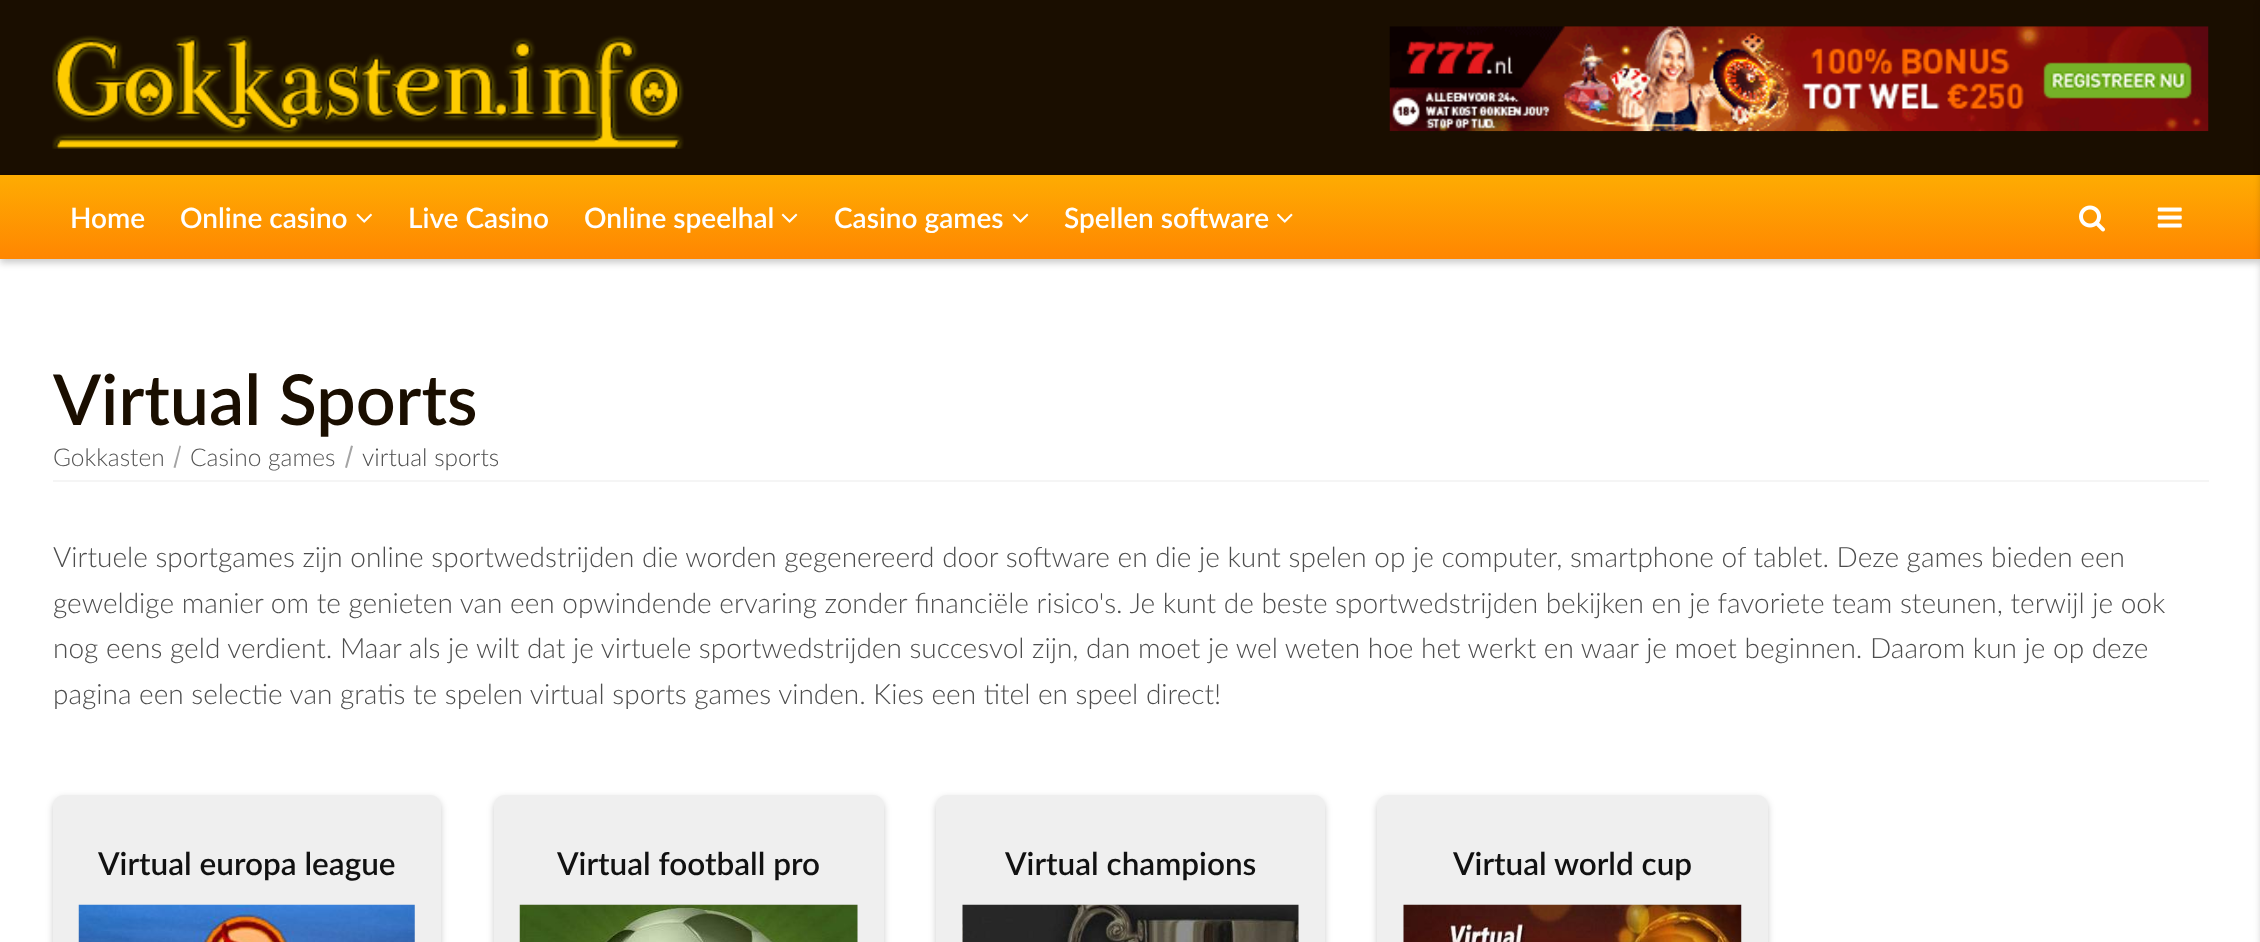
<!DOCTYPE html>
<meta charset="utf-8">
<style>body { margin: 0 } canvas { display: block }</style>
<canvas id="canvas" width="2260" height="942"></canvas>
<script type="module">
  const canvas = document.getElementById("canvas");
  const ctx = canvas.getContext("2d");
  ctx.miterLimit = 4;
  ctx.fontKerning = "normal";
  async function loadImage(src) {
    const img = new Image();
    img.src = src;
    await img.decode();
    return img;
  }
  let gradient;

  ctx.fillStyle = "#ffffff";
  ctx.fillRect(0, 0, 2260, 942);
  ctx.fillStyle = "#1a0e00";
  ctx.fillRect(0, 0, 2260, 175);
  ctx.drawImage(await loadImage("img1.png"), 52, 35, 632, 114);
  ctx.drawImage(await loadImage("img2.png"), 1389, 26, 820, 106);
  ctx.fillStyle = "rgba(0, 0, 0, 0.2)";
  ctx.filter = "blur(3.5px)";
  ctx.beginPath();
  ctx.rect(0, 179, 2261, 84);
  ctx.fill();
  ctx.filter = "none";
  gradient = ctx.createLinearGradient(1131, 175, 1131, 259);
  gradient.addColorStop(0, "#feac02");
  gradient.addColorStop(1, "#ff8601");
  ctx.fillStyle = gradient;
  ctx.fillRect(0, 175, 2260, 84);
  ctx.font = "600 28px Lato";
  ctx.fillStyle = "#ffffff";
  ctx.fillText("Home", 70, 228);
  ctx.fillText("Online casino", 180, 228);
  ctx.drawImage(await loadImage("img3.png"), 356, 213, 16, 10);
  ctx.fillText("Live Casino", 408, 228);
  ctx.fillText("Online speelhal", 584, 228);
  ctx.drawImage(await loadImage("img4.png"), 781, 213, 17, 10);
  ctx.fillText("Casino games", 834, 228);
  ctx.drawImage(await loadImage("img4.png"), 1012, 213, 17, 10);
  ctx.fillText("Spellen software", 1064, 228);
  ctx.drawImage(await loadImage("img5.png"), 1277, 213, 16, 10);
  ctx.drawImage(await loadImage("img6.png"), 2079, 205, 26, 27);
  ctx.drawImage(await loadImage("img7.png"), 2157, 207, 25, 21);
  ctx.fillStyle = "rgba(0, 0, 0, 0.2)";
  ctx.filter = "blur(3.5px)";
  ctx.beginPath();
  ctx.rect(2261, 4, 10, 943);
  ctx.fill();
  ctx.filter = "none";
  ctx.font = "600 70px Lato";
  ctx.fillStyle = "#1a0e00";
  ctx.fillText("Virtual Sports", 53, 425);
  ctx.fillStyle = "#f5f5f5";
  ctx.fillRect(53, 480, 2156, 2);
  ctx.font = "300 24.5px Lato";
  ctx.fillStyle = "#555555";
  ctx.fillText("Gokkasten", 53, 466);
  ctx.fillStyle = "#a4a4a4";
  ctx.beginPath();
  ctx.moveTo(179.5, 445.5);
  ctx.lineTo(181, 446);
  ctx.lineTo(175.5, 468);
  ctx.lineTo(173.5, 467.5);
  ctx.closePath();
  ctx.fill();
  ctx.fillStyle = "#555555";
  ctx.fillText("Casino games", 190, 466);
  ctx.fillStyle = "#a4a4a4";
  ctx.beginPath();
  ctx.moveTo(351, 445.5);
  ctx.lineTo(353, 446);
  ctx.lineTo(347, 468);
  ctx.lineTo(345, 467.5);
  ctx.closePath();
  ctx.fill();
  ctx.fillStyle = "#4d4d4d";
  ctx.fillText("virtual sports", 362, 466);
  ctx.font = "300 28px Lato";
  ctx.fillText("Virtuele sportgames zijn online sportwedstrijden die worden gegenereerd door software en die je kunt spelen op je computer, smartphone of tablet. Deze games bieden een", 53, 567);
  ctx.fillText("geweldige manier om te genieten van een opwindende ervaring zonder financiële risico's. Je kunt de beste sportwedstrijden bekijken en je favoriete team steunen, terwijl je ook", 53, 613);
  ctx.fillText("nog eens geld verdient. Maar als je wilt dat je virtuele sportwedstrijden succesvol zijn, dan moet je wel weten hoe het werkt en waar je moet beginnen. Daarom kun je op deze", 53, 658);
  ctx.fillText("pagina een selectie van gratis te spelen virtual sports games vinden. Kies een titel en speel direct!", 53, 704);
  ctx.fillStyle = "rgba(0, 0, 0, 0.2)";
  ctx.filter = "blur(3.5px)";
  ctx.beginPath();
  ctx.roundRect(53, 798, 388, 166, 11);
  ctx.fill();
  ctx.filter = "none";
  ctx.fillStyle = "#efefef";
  ctx.beginPath();
  ctx.roundRect(53, 795, 388, 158, 11);
  ctx.fill();
  ctx.font = "600 31.5px Lato";
  ctx.fillStyle = "#111111";
  ctx.fillText("Virtual europa league", 98, 875);
  ctx.drawImage(await loadImage("img8.png"), 78, 904, 337, 38);
  ctx.fillStyle = "rgba(0, 0, 0, 0.2)";
  ctx.filter = "blur(3.5px)";
  ctx.beginPath();
  ctx.roundRect(494, 798, 390, 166, 11);
  ctx.fill();
  ctx.filter = "none";
  ctx.fillStyle = "#efefef";
  ctx.beginPath();
  ctx.roundRect(494, 795, 390, 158, 11);
  ctx.fill();
  ctx.fillStyle = "#111111";
  ctx.fillText("Virtual football pro", 557, 875);
  ctx.drawImage(await loadImage("img9.png"), 519, 904, 339, 38);
  ctx.fillStyle = "rgba(0, 0, 0, 0.2)";
  ctx.filter = "blur(3.5px)";
  ctx.beginPath();
  ctx.roundRect(936, 798, 389, 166, 11);
  ctx.fill();
  ctx.filter = "none";
  ctx.fillStyle = "#efefef";
  ctx.beginPath();
  ctx.roundRect(936, 795, 389, 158, 11);
  ctx.fill();
  ctx.fillStyle = "#111111";
  ctx.fillText("Virtual champions", 1005, 875);
  ctx.drawImage(await loadImage("img10.png"), 962, 904, 337, 38);
  ctx.fillStyle = "rgba(0, 0, 0, 0.2)";
  ctx.filter = "blur(3.5px)";
  ctx.beginPath();
  ctx.roundRect(1377, 798, 391, 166, 11);
  ctx.fill();
  ctx.filter = "none";
  ctx.fillStyle = "#efefef";
  ctx.beginPath();
  ctx.roundRect(1377, 795, 391, 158, 11);
  ctx.fill();
  ctx.fillStyle = "#111111";
  ctx.fillText("Virtual world cup", 1453, 875);
  ctx.drawImage(await loadImage("img11.png"), 1403, 904, 339, 38);
</script>
